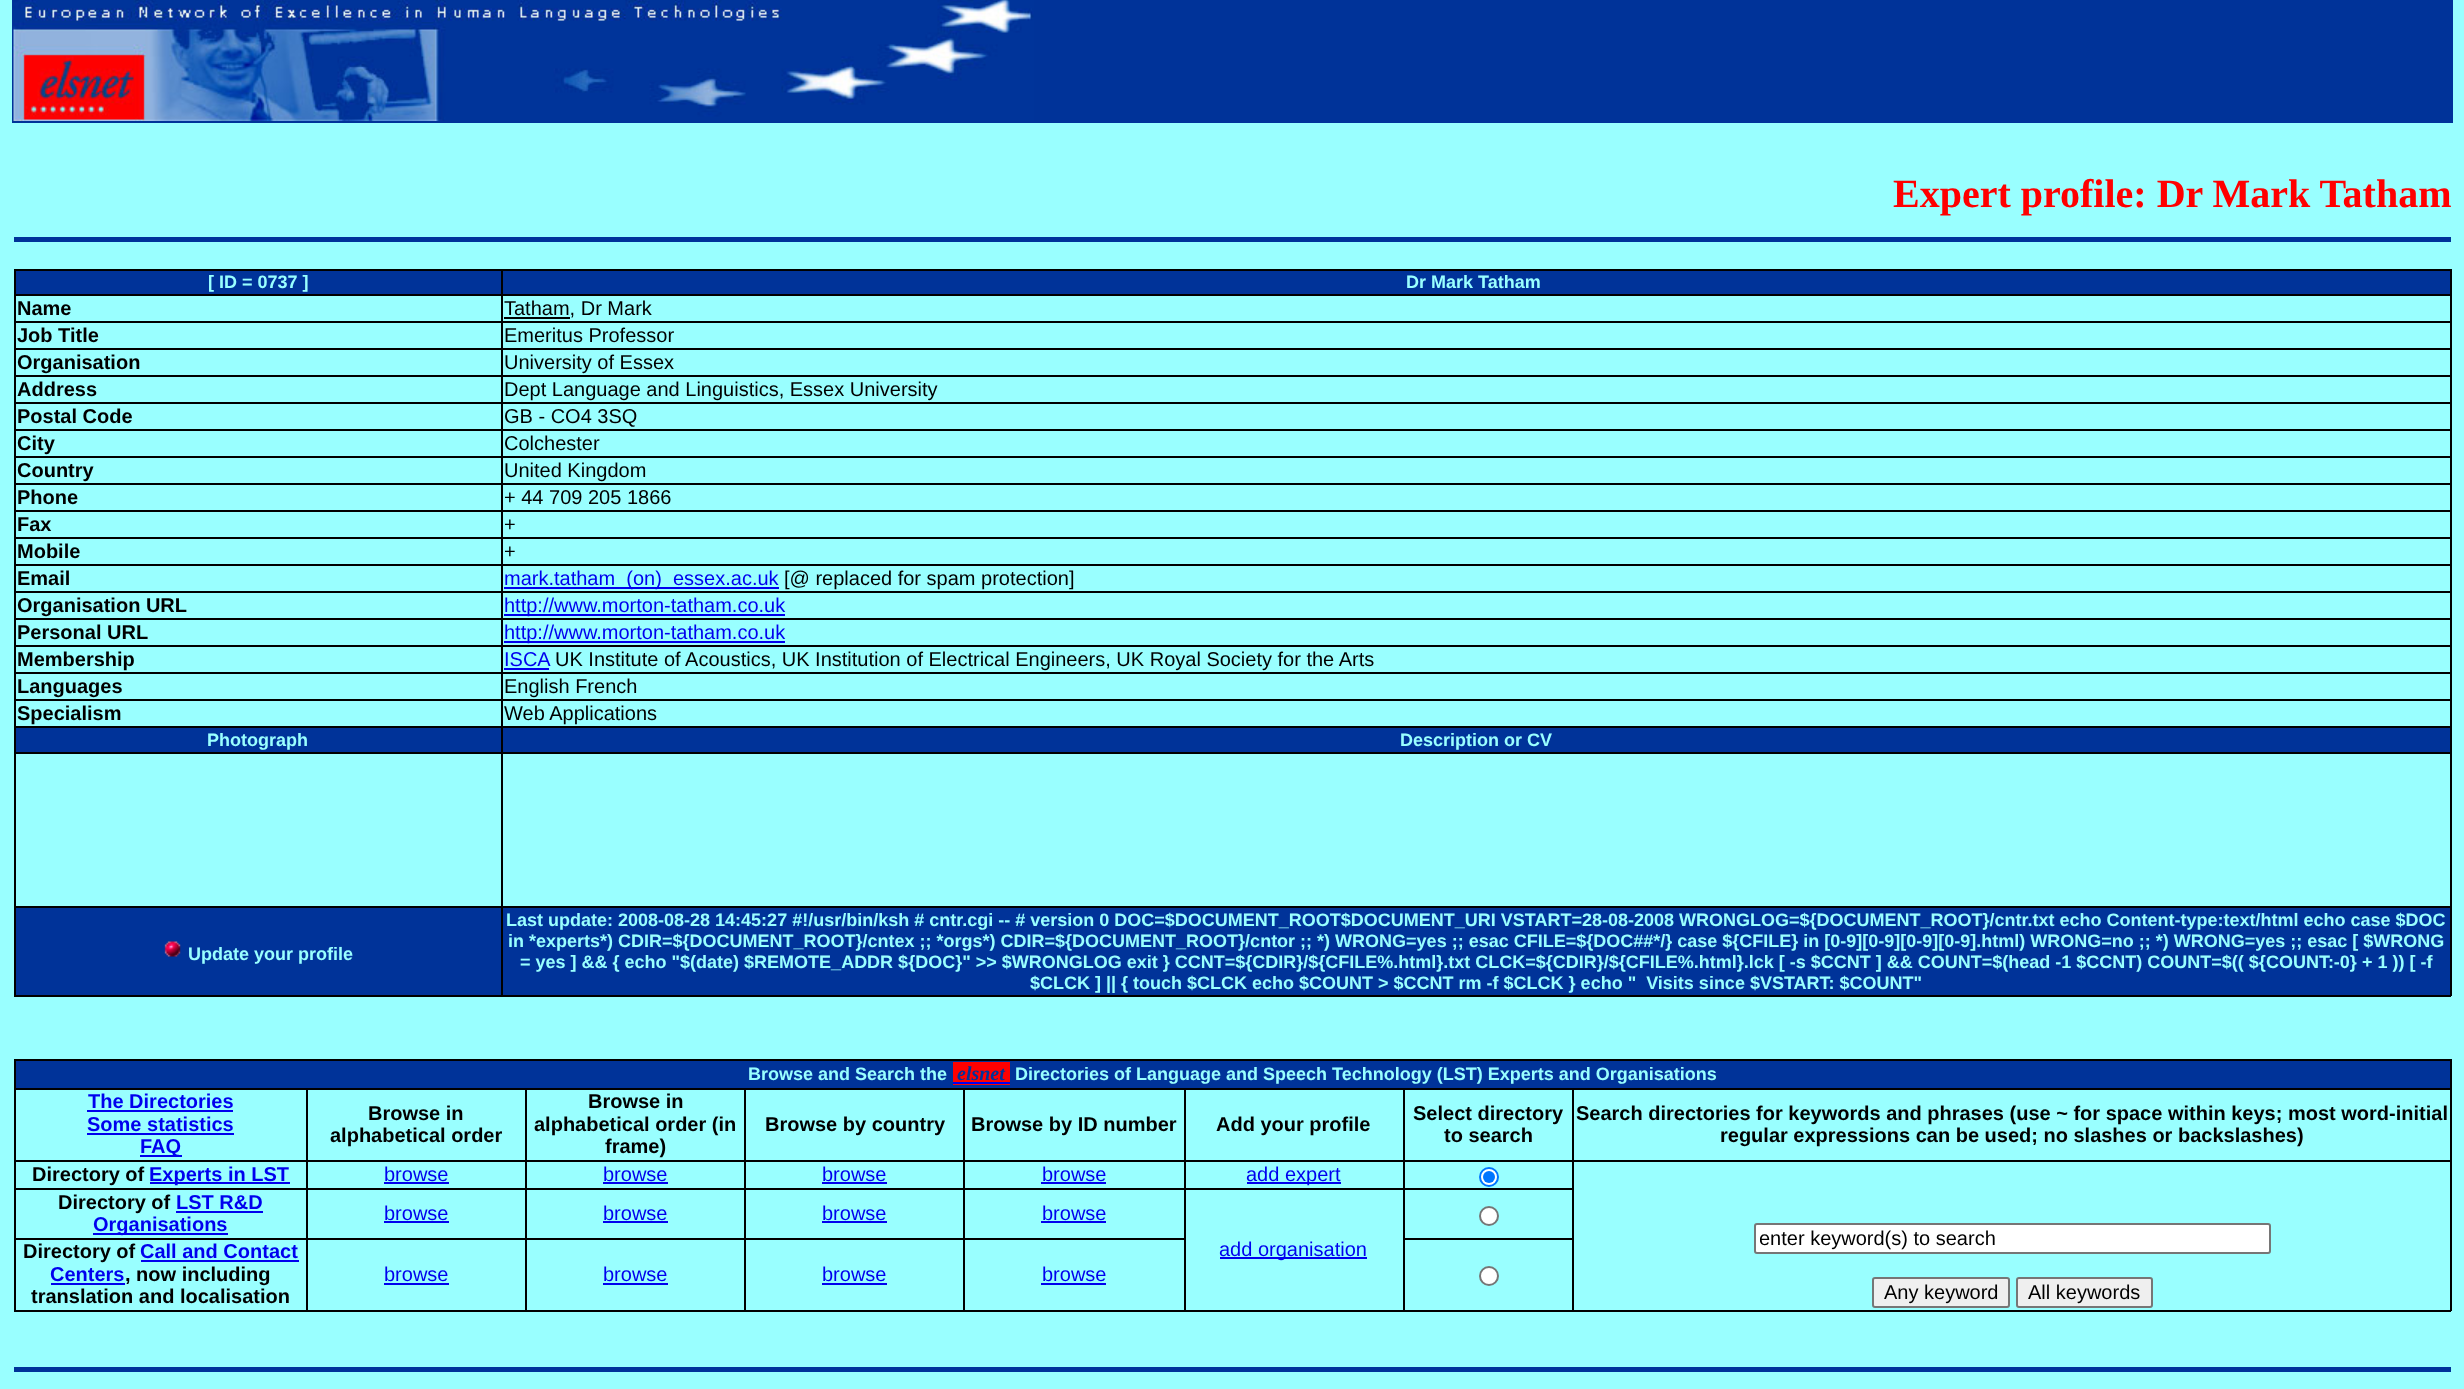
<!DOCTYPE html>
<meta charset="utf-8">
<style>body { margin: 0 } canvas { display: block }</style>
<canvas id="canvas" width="2464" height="1389"></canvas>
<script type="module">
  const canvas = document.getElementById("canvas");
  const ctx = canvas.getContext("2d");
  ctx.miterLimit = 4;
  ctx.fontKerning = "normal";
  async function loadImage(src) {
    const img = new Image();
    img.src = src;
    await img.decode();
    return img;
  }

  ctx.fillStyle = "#99ffff";
  ctx.fillRect(0, 0, 2464, 1389);
  ctx.fillStyle = "#003399";
  ctx.fillRect(12, 0, 2441, 123);
  ctx.drawImage(await loadImage("img1.png"), 13, 0, 1021, 121);
  ctx.font = "bold 40px Liberation Serif";
  ctx.fillStyle = "#ff0000";
  ctx.fillText("Expert profile: Dr Mark Tatham", 1893, 207);
  ctx.fillStyle = "#003399";
  ctx.fillRect(14, 237, 2437, 5);
  ctx.fillStyle = "#000000";
  ctx.fillRect(14, 269, 2437, 2);
  ctx.fillRect(2450, 269, 2, 727);
  ctx.fillRect(14, 995, 2437, 2);
  ctx.fillRect(14, 269, 2, 727);
  ctx.fillStyle = "#003399";
  ctx.fillRect(16, 271, 485, 23);
  ctx.font = "bold 18px Liberation Sans";
  ctx.fillStyle = "#99ffff";
  ctx.fillText("[ ID = 0737 ]", 208, 288);
  ctx.fillStyle = "#003399";
  ctx.fillRect(503, 271, 1947, 23);
  ctx.fillStyle = "#000000";
  ctx.fillRect(501, 294, 1950, 2);
  ctx.fillRect(501, 321, 1950, 2);
  ctx.fillRect(501, 348, 1950, 2);
  ctx.fillRect(501, 375, 1950, 2);
  ctx.fillRect(501, 402, 1950, 2);
  ctx.fillRect(501, 429, 1950, 2);
  ctx.fillRect(501, 456, 1950, 2);
  ctx.fillRect(501, 483, 1950, 2);
  ctx.fillRect(501, 510, 1950, 2);
  ctx.fillRect(501, 537, 1950, 2);
  ctx.fillRect(501, 564, 1950, 2);
  ctx.fillRect(501, 591, 1950, 2);
  ctx.fillRect(501, 618, 1950, 2);
  ctx.fillRect(501, 645, 1950, 2);
  ctx.fillRect(501, 672, 1950, 2);
  ctx.fillRect(501, 699, 1950, 2);
  ctx.fillRect(501, 726, 1950, 2);
  ctx.fillRect(501, 752, 1950, 2);
  ctx.fillRect(501, 906, 1950, 2);
  ctx.fillRect(501, 906, 2, 90);
  ctx.fillRect(14, 906, 489, 2);
  ctx.fillRect(501, 752, 2, 156);
  ctx.fillRect(14, 752, 489, 2);
  ctx.fillRect(501, 726, 2, 27);
  ctx.fillRect(14, 726, 489, 2);
  ctx.fillRect(501, 699, 2, 29);
  ctx.fillRect(14, 699, 489, 2);
  ctx.fillRect(501, 672, 2, 29);
  ctx.fillRect(14, 672, 489, 2);
  ctx.fillRect(501, 645, 2, 29);
  ctx.fillRect(14, 645, 489, 2);
  ctx.fillRect(501, 618, 2, 29);
  ctx.fillRect(14, 618, 489, 2);
  ctx.fillRect(501, 591, 2, 29);
  ctx.fillRect(14, 591, 489, 2);
  ctx.fillRect(501, 564, 2, 29);
  ctx.fillRect(14, 564, 489, 2);
  ctx.fillRect(501, 537, 2, 29);
  ctx.fillRect(14, 537, 489, 2);
  ctx.fillRect(501, 510, 2, 29);
  ctx.fillRect(14, 510, 489, 2);
  ctx.fillRect(501, 483, 2, 29);
  ctx.fillRect(14, 483, 489, 2);
  ctx.fillRect(501, 456, 2, 29);
  ctx.fillRect(14, 456, 489, 2);
  ctx.fillRect(501, 429, 2, 29);
  ctx.fillRect(14, 429, 489, 2);
  ctx.fillRect(501, 402, 2, 29);
  ctx.fillRect(14, 402, 489, 2);
  ctx.fillRect(501, 375, 2, 29);
  ctx.fillRect(14, 375, 489, 2);
  ctx.fillRect(501, 348, 2, 29);
  ctx.fillRect(14, 348, 489, 2);
  ctx.fillRect(501, 321, 2, 29);
  ctx.fillRect(14, 321, 489, 2);
  ctx.fillRect(501, 294, 2, 29);
  ctx.fillRect(14, 294, 489, 2);
  ctx.fillRect(501, 269, 2, 27);
  ctx.fillStyle = "#99ffff";
  ctx.fillText("Dr Mark Tatham", 1406, 288);
  ctx.font = "bold 20px Liberation Sans";
  ctx.fillStyle = "#000000";
  ctx.fillText("Name", 17, 315);
  ctx.fillRect(504, 317, 66, 2);
  ctx.font = "20px Liberation Sans";
  ctx.fillText("Tatham, Dr Mark", 504, 315);
  ctx.font = "bold 20px Liberation Sans";
  ctx.fillText("Job Title", 17, 342);
  ctx.font = "20px Liberation Sans";
  ctx.fillText("Emeritus Professor", 504, 342);
  ctx.font = "bold 20px Liberation Sans";
  ctx.fillText("Organisation", 17, 369);
  ctx.font = "20px Liberation Sans";
  ctx.fillText("University of Essex", 504, 369);
  ctx.font = "bold 20px Liberation Sans";
  ctx.fillText("Address", 17, 396);
  ctx.font = "20px Liberation Sans";
  ctx.fillText("Dept Language and Linguistics, Essex University", 504, 396);
  ctx.font = "bold 20px Liberation Sans";
  ctx.fillText("Postal Code", 17, 423);
  ctx.font = "20px Liberation Sans";
  ctx.fillText("GB - CO4 3SQ", 504, 423);
  ctx.font = "bold 20px Liberation Sans";
  ctx.fillText("City", 17, 450);
  ctx.font = "20px Liberation Sans";
  ctx.fillText("Colchester", 504, 450);
  ctx.font = "bold 20px Liberation Sans";
  ctx.fillText("Country", 17, 477);
  ctx.font = "20px Liberation Sans";
  ctx.fillText("United Kingdom", 504, 477);
  ctx.font = "bold 20px Liberation Sans";
  ctx.fillText("Phone", 17, 504);
  ctx.font = "20px Liberation Sans";
  ctx.fillText("+ 44 709 205 1866", 504, 504);
  ctx.font = "bold 20px Liberation Sans";
  ctx.fillText("Fax", 17, 531);
  ctx.font = "20px Liberation Sans";
  ctx.fillText("+", 504, 531);
  ctx.font = "bold 20px Liberation Sans";
  ctx.fillText("Mobile", 17, 558);
  ctx.font = "20px Liberation Sans";
  ctx.fillText("+", 504, 558);
  ctx.font = "bold 20px Liberation Sans";
  ctx.fillText("Email", 17, 585);
  ctx.fillStyle = "#0000ee";
  ctx.fillRect(504, 587, 275, 2);
  ctx.font = "20px Liberation Sans";
  ctx.fillText("mark.tatham_(on)_essex.ac.uk", 504, 585);
  ctx.fillStyle = "#000000";
  ctx.fillText("[@ replaced for spam protection]", 784, 585);
  ctx.font = "bold 20px Liberation Sans";
  ctx.fillText("Organisation URL", 17, 612);
  ctx.fillStyle = "#0000ee";
  ctx.fillRect(504, 614, 281, 2);
  ctx.font = "20px Liberation Sans";
  ctx.fillText("http://www.morton-tatham.co.uk", 504, 612);
  ctx.font = "bold 20px Liberation Sans";
  ctx.fillStyle = "#000000";
  ctx.fillText("Personal URL", 17, 639);
  ctx.fillStyle = "#0000ee";
  ctx.fillRect(504, 641, 281, 2);
  ctx.font = "20px Liberation Sans";
  ctx.fillText("http://www.morton-tatham.co.uk", 504, 639);
  ctx.font = "bold 20px Liberation Sans";
  ctx.fillStyle = "#000000";
  ctx.fillText("Membership", 17, 666);
  ctx.font = "20px Liberation Sans";
  ctx.fillStyle = "#0000ee";
  ctx.fillText("ISCA", 504, 666);
  ctx.fillRect(504, 668, 45, 2);
  ctx.fillStyle = "#000000";
  ctx.fillText("UK Institute of Acoustics, UK Institution of Electrical Engineers, UK Royal Society for the Arts", 555, 666);
  ctx.font = "bold 20px Liberation Sans";
  ctx.fillText("Languages", 17, 693);
  ctx.font = "20px Liberation Sans";
  ctx.fillText("English French", 504, 693);
  ctx.font = "bold 20px Liberation Sans";
  ctx.fillText("Specialism", 17, 720);
  ctx.font = "20px Liberation Sans";
  ctx.fillText("Web Applications", 504, 720);
  ctx.fillStyle = "#003399";
  ctx.fillRect(16, 728, 485, 24);
  ctx.font = "bold 18px Liberation Sans";
  ctx.fillStyle = "#99ffff";
  ctx.fillText("Photograph", 207, 746);
  ctx.fillStyle = "#003399";
  ctx.fillRect(503, 728, 1947, 24);
  ctx.fillStyle = "#99ffff";
  ctx.fillText("Description or CV", 1400, 746);
  ctx.fillStyle = "#003399";
  ctx.fillRect(16, 908, 485, 87);
  ctx.drawImage(await loadImage("img2.png"), 164, 941, 17, 16);
  ctx.fillStyle = "#99ffff";
  ctx.fillText("Update your profile", 188, 960);
  ctx.fillStyle = "#003399";
  ctx.fillRect(503, 908, 1947, 87);
  ctx.fillStyle = "#99ffff";
  ctx.fillText("Last update: 2008-08-28 14:45:27 #!/usr/bin/ksh # cntr.cgi -- # version 0 DOC=$DOCUMENT_ROOT$DOCUMENT_URI VSTART=28-08-2008 WRONGLOG=${DOCUMENT_ROOT}/cntr.txt echo Content-type:text/html echo case $DOC", 506, 926);
  ctx.fillText("in *experts*) CDIR=${DOCUMENT_ROOT}/cntex ;; *orgs*) CDIR=${DOCUMENT_ROOT}/cntor ;; *) WRONG=yes ;; esac CFILE=${DOC##*/} case ${CFILE} in [0-9][0-9][0-9][0-9].html) WRONG=no ;; *) WRONG=yes ;; esac [ $WRONG", 508, 947);
  ctx.fillText("= yes ] && { echo \"$(date) $REMOTE_ADDR ${DOC}\" >> $WRONGLOG exit } CCNT=${CDIR}/${CFILE%.html}.txt CLCK=${CDIR}/${CFILE%.html}.lck [ -s $CCNT ] && COUNT=$(head -1 $CCNT) COUNT=$(( ${COUNT:-0} + 1 )) [ -f", 520, 968);
  ctx.fillText("$CLCK ] || { touch $CLCK echo $COUNT > $CCNT rm -f $CLCK } echo \"  Visits since $VSTART: $COUNT\"", 1030, 989);
  ctx.fillStyle = "#000000";
  ctx.fillRect(14, 1059, 2437, 2);
  ctx.fillRect(2450, 1059, 2, 252);
  ctx.fillRect(14, 1310, 2437, 2);
  ctx.fillRect(14, 1059, 2, 252);
  ctx.fillStyle = "#003399";
  ctx.fillRect(16, 1061, 2434, 27);
  ctx.fillStyle = "#99ffff";
  ctx.fillText("Browse and Search the", 748, 1080);
  ctx.fillStyle = "#ff0000";
  ctx.fillRect(953, 1062, 57, 23);
  ctx.font = "italic bold 20px Liberation Serif";
  ctx.fillStyle = "#003399";
  ctx.fillText("elsnet", 957, 1080);
  ctx.fillStyle = "#0000ee";
  ctx.fillRect(953, 1082, 57, 2);
  ctx.font = "bold 18px Liberation Sans";
  ctx.fillStyle = "#99ffff";
  ctx.fillText("Directories of Language and Speech Technology (LST) Experts and Organisations", 1015, 1080);
  ctx.fillStyle = "#000000";
  ctx.fillRect(1572, 1088, 879, 2);
  ctx.fillRect(1572, 1160, 879, 2);
  ctx.fillRect(1403, 1188, 171, 2);
  ctx.fillRect(1403, 1238, 171, 2);
  ctx.fillRect(1572, 1160, 2, 151);
  ctx.fillRect(1403, 1160, 171, 2);
  ctx.fillRect(1572, 1088, 2, 73);
  ctx.fillRect(1403, 1088, 171, 2);
  ctx.fillRect(1403, 1238, 2, 73);
  ctx.fillRect(1403, 1188, 2, 51);
  ctx.fillRect(1184, 1188, 220, 2);
  ctx.fillRect(1403, 1160, 2, 30);
  ctx.fillRect(1184, 1160, 220, 2);
  ctx.fillRect(1403, 1088, 2, 73);
  ctx.fillRect(1184, 1088, 220, 2);
  ctx.fillRect(963, 1238, 222, 2);
  ctx.fillRect(1184, 1188, 2, 123);
  ctx.fillRect(963, 1188, 222, 2);
  ctx.fillRect(1184, 1160, 2, 30);
  ctx.fillRect(963, 1160, 222, 2);
  ctx.fillRect(1184, 1088, 2, 73);
  ctx.fillRect(963, 1088, 222, 2);
  ctx.fillRect(963, 1238, 2, 73);
  ctx.fillRect(744, 1238, 221, 2);
  ctx.fillRect(963, 1188, 2, 51);
  ctx.fillRect(744, 1188, 221, 2);
  ctx.fillRect(963, 1160, 2, 30);
  ctx.fillRect(744, 1160, 221, 2);
  ctx.fillRect(963, 1088, 2, 73);
  ctx.fillRect(744, 1088, 221, 2);
  ctx.fillRect(744, 1238, 2, 73);
  ctx.fillRect(525, 1238, 221, 2);
  ctx.fillRect(744, 1188, 2, 51);
  ctx.fillRect(525, 1188, 221, 2);
  ctx.fillRect(744, 1160, 2, 30);
  ctx.fillRect(525, 1160, 221, 2);
  ctx.fillRect(744, 1088, 2, 73);
  ctx.fillRect(525, 1088, 221, 2);
  ctx.fillRect(525, 1238, 2, 73);
  ctx.fillRect(306, 1238, 221, 2);
  ctx.fillRect(525, 1188, 2, 51);
  ctx.fillRect(306, 1188, 221, 2);
  ctx.fillRect(525, 1160, 2, 30);
  ctx.fillRect(306, 1160, 221, 2);
  ctx.fillRect(525, 1088, 2, 73);
  ctx.fillRect(306, 1088, 221, 2);
  ctx.fillRect(306, 1238, 2, 73);
  ctx.fillRect(14, 1238, 294, 2);
  ctx.fillRect(306, 1188, 2, 51);
  ctx.fillRect(14, 1188, 294, 2);
  ctx.fillRect(306, 1160, 2, 30);
  ctx.fillRect(14, 1160, 294, 2);
  ctx.fillRect(306, 1088, 2, 73);
  ctx.fillRect(14, 1088, 294, 2);
  ctx.font = "bold 20px Liberation Sans";
  ctx.fillStyle = "#0000ee";
  ctx.fillText("The Directories", 88, 1108);
  ctx.fillRect(87, 1110, 146, 2);
  ctx.fillText("Some statistics", 87, 1131);
  ctx.fillRect(87, 1133, 147, 2);
  ctx.fillRect(140, 1155, 42, 2);
  ctx.fillText("FAQ", 140, 1153);
  ctx.fillStyle = "#000000";
  ctx.fillText("Browse in", 368, 1120);
  ctx.fillText("alphabetical order", 330, 1142);
  ctx.fillText("Browse in", 588, 1108);
  ctx.fillText("alphabetical order (in", 534, 1131);
  ctx.fillText("frame)", 605, 1153);
  ctx.fillText("Browse by country", 765, 1131);
  ctx.fillText("Browse by ID number", 971, 1131);
  ctx.fillText("Add your profile", 1216, 1131);
  ctx.fillText("Select directory", 1413, 1120);
  ctx.fillText("to search", 1444, 1142);
  ctx.fillText("Search directories for keywords and phrases (use ~ for space within keys; most word-initial", 1576, 1120);
  ctx.fillText("regular expressions can be used; no slashes or backslashes)", 1720, 1142);
  ctx.fillText("Directory of", 32, 1181);
  ctx.fillStyle = "#0000ee";
  ctx.fillRect(150, 1182, 140, 2);
  ctx.fillText("Experts in LST", 149, 1181);
  ctx.font = "20px Liberation Sans";
  ctx.fillText("browse", 384, 1181);
  ctx.fillRect(384, 1182, 65, 2);
  ctx.fillText("browse", 603, 1181);
  ctx.fillRect(603, 1182, 65, 2);
  ctx.fillText("browse", 822, 1181);
  ctx.fillRect(822, 1182, 65, 2);
  ctx.fillText("browse", 1042, 1181);
  ctx.fillRect(1041, 1182, 65, 2);
  ctx.fillRect(1247, 1182, 94, 2);
  ctx.fillText("add expert", 1246, 1181);
  ctx.fillStyle = "#ffffff";
  ctx.beginPath();
  ctx.arc(1489, 1177, 9, 0, Math.PI * 2);
  ctx.fill();
  ctx.strokeStyle = "#0075ff";
  ctx.lineWidth = 2;
  ctx.stroke();
  ctx.fillStyle = "#0075ff";
  ctx.beginPath();
  ctx.arc(1489, 1177, 6, 0, Math.PI * 2);
  ctx.fill();
  ctx.fillStyle = "#ffffff";
  ctx.beginPath();
  ctx.roundRect(1755, 1224, 515, 29, 2);
  ctx.fill();
  ctx.strokeStyle = "#767676";
  ctx.stroke();
  ctx.save();
  ctx.beginPath();
  ctx.rect(1760, 1227, 505, 23);
  ctx.clip();
  ctx.fillStyle = "#000000";
  ctx.fillText("enter keyword(s) to search", 1759, 1245);
  ctx.restore();
  ctx.fillStyle = "#efefef";
  ctx.beginPath();
  ctx.roundRect(1873, 1278, 136, 29, 2);
  ctx.fill();
  ctx.stroke();
  ctx.fillStyle = "#000000";
  ctx.fillText("Any keyword", 1884, 1299);
  ctx.fillStyle = "#efefef";
  ctx.beginPath();
  ctx.roundRect(2017, 1278, 135, 29, 2);
  ctx.fill();
  ctx.stroke();
  ctx.fillStyle = "#000000";
  ctx.fillText("All keywords", 2028, 1299);
  ctx.font = "bold 20px Liberation Sans";
  ctx.fillText("Directory of", 58, 1209);
  ctx.fillStyle = "#0000ee";
  ctx.fillText("LST R&D", 176, 1209);
  ctx.fillRect(176, 1211, 87, 2);
  ctx.fillRect(93, 1233, 135, 2);
  ctx.fillText("Organisations", 93, 1231);
  ctx.font = "20px Liberation Sans";
  ctx.fillText("browse", 384, 1220);
  ctx.fillRect(384, 1221, 65, 2);
  ctx.fillText("browse", 603, 1220);
  ctx.fillRect(603, 1221, 65, 2);
  ctx.fillText("browse", 822, 1220);
  ctx.fillRect(822, 1221, 65, 2);
  ctx.fillText("browse", 1042, 1220);
  ctx.fillRect(1041, 1221, 65, 2);
  ctx.fillStyle = "#ffffff";
  ctx.beginPath();
  ctx.arc(1489, 1216, 9, 0, Math.PI * 2);
  ctx.fill();
  ctx.stroke();
  ctx.fillStyle = "#0000ee";
  ctx.fillRect(1220, 1257, 147, 2);
  ctx.fillText("add organisation", 1219, 1256);
  ctx.font = "bold 20px Liberation Sans";
  ctx.fillStyle = "#000000";
  ctx.fillText("Directory of", 23, 1258);
  ctx.fillStyle = "#0000ee";
  ctx.fillText("Call and Contact", 140, 1258);
  ctx.fillRect(141, 1260, 158, 2);
  ctx.fillText("Centers", 50, 1281);
  ctx.fillRect(51, 1283, 74, 2);
  ctx.fillStyle = "#000000";
  ctx.fillText(", now including", 125, 1281);
  ctx.fillText("translation and localisation", 31, 1303);
  ctx.font = "20px Liberation Sans";
  ctx.fillStyle = "#0000ee";
  ctx.fillText("browse", 384, 1281);
  ctx.fillRect(384, 1283, 65, 2);
  ctx.fillText("browse", 603, 1281);
  ctx.fillRect(603, 1283, 65, 2);
  ctx.fillText("browse", 822, 1281);
  ctx.fillRect(822, 1283, 65, 2);
  ctx.fillText("browse", 1042, 1281);
  ctx.fillRect(1041, 1283, 65, 2);
  ctx.fillStyle = "#ffffff";
  ctx.beginPath();
  ctx.arc(1489, 1276, 9, 0, Math.PI * 2);
  ctx.fill();
  ctx.stroke();
  ctx.fillStyle = "#003399";
  ctx.fillRect(14, 1367, 2437, 5);
</script>
